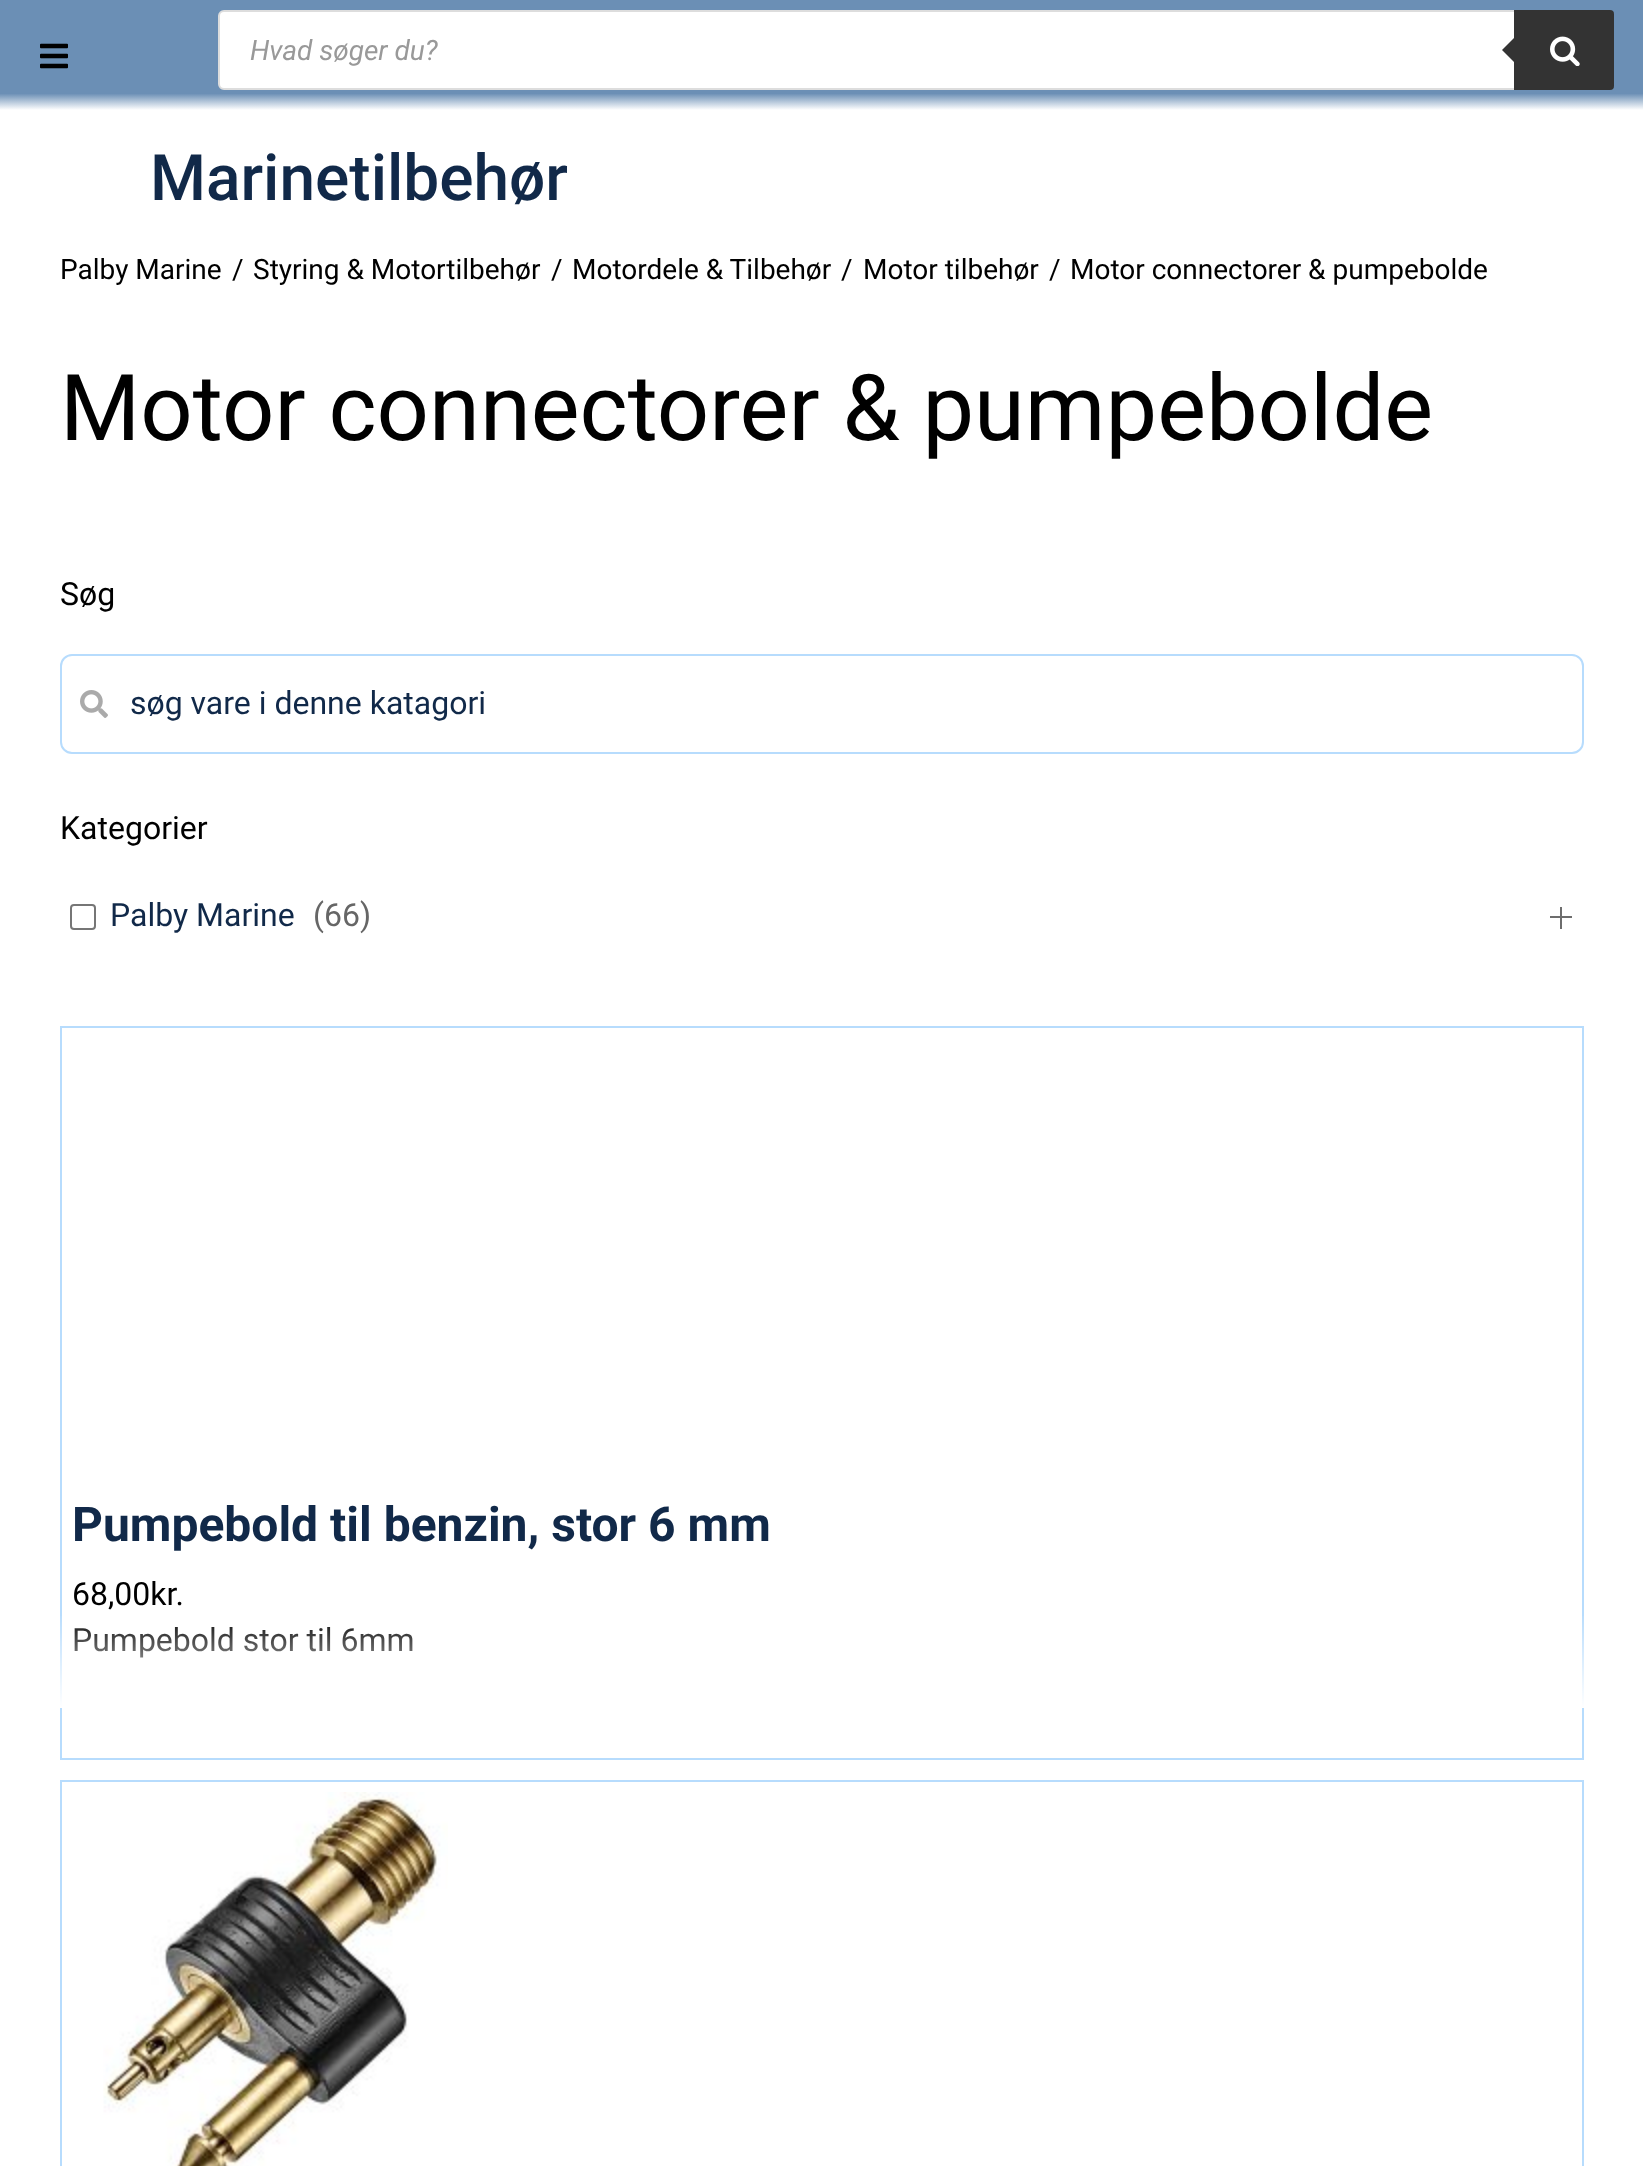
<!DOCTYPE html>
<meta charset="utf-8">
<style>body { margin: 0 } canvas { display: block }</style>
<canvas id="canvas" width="1643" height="2166"></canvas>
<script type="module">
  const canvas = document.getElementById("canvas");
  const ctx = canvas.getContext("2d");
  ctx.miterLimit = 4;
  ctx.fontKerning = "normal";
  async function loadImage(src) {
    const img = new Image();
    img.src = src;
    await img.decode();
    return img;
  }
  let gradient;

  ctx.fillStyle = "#ffffff";
  ctx.fillRect(0, 0, 1643, 2166);
  gradient = ctx.createLinearGradient(822, 0, 822, 110);
  gradient.addColorStop(0.85, "#6b8fb5");
  gradient.addColorStop(1, "#ffffff");
  ctx.fillStyle = gradient;
  ctx.fillRect(0, 0, 1643, 110);
  ctx.drawImage(await loadImage("img1.png"), 40, 43, 28, 26);
  ctx.fillStyle = "#ffffff";
  ctx.beginPath();
  ctx.roundRect(219, 11, 1394, 78, 5);
  ctx.fill();
  ctx.strokeStyle = "#dddddd";
  ctx.lineWidth = 2;
  ctx.stroke();
  ctx.font = "italic 28px Roboto";
  ctx.fillStyle = "#999999";
  ctx.fillText("Hvad søger du?", 250, 60);
  ctx.fillStyle = "#333333";
  ctx.beginPath();
  ctx.roundRect(1514, 10, 100, 80, [0, 4, 4, 0]);
  ctx.fill();
  ctx.beginPath();
  ctx.moveTo(1518, 34);
  ctx.lineTo(1518, 66);
  ctx.lineTo(1502, 50);
  ctx.closePath();
  ctx.fill();
  ctx.drawImage(await loadImage("img2.png"), 1550, 36, 30, 30);
  ctx.font = "500 64px Roboto";
  ctx.fillStyle = "#112949";
  ctx.fillText("Marinetilbehør", 150, 200);
  ctx.font = "28px Roboto";
  ctx.fillStyle = "#000000";
  ctx.fillText("Palby Marine", 60, 279);
  ctx.fillText("/", 232, 279);
  ctx.fillText("Styring & Motortilbehør", 253, 279);
  ctx.fillText("/", 551, 279);
  ctx.fillText("Motordele & Tilbehør", 572, 279);
  ctx.fillText("/", 841, 279);
  ctx.fillText("Motor tilbehør", 863, 279);
  ctx.fillText("/", 1049, 279);
  ctx.fillText("Motor connectorer & pumpebolde", 1070, 279);
  ctx.font = "92px Roboto";
  ctx.fillText("Motor connectorer & pumpebolde", 60, 440);
  ctx.font = "32px Roboto";
  ctx.fillText("Søg", 60, 605);
  ctx.beginPath();
  ctx.roundRect(61, 655, 1522, 98, 11);
  ctx.strokeStyle = "#b7dcfd";
  ctx.stroke();
  ctx.drawImage(await loadImage("img3.png"), 80, 690, 28, 28);
  ctx.fillStyle = "#112949";
  ctx.fillText("søg vare i denne katagori", 130, 714);
  ctx.fillStyle = "#000000";
  ctx.fillText("Kategorier", 60, 839);
  ctx.beginPath();
  ctx.roundRect(71, 905, 24, 24, 3);
  ctx.strokeStyle = "#767676";
  ctx.stroke();
  ctx.fillStyle = "#112949";
  ctx.fillText("Palby Marine", 110, 926);
  ctx.fillStyle = "#666666";
  ctx.fillText("(66)", 313, 926);
  ctx.fillStyle = "#6d6d6d";
  ctx.fillRect(1560, 907, 2, 22);
  ctx.fillRect(1550, 916, 22, 2);
  ctx.strokeStyle = "#b7dcfd";
  ctx.strokeRect(61, 1027, 1522, 732);
  ctx.font = "bold 48px Roboto";
  ctx.fillStyle = "#112949";
  ctx.fillText("Pumpebold til benzin, stor 6 mm", 72, 1541);
  ctx.font = "32px Roboto";
  ctx.fillStyle = "#000000";
  ctx.fillText("68,00kr.", 72, 1605);
  ctx.fillText("Pumpebold stor til 6mm", 72, 1651);
  gradient = ctx.createLinearGradient(822, 1612, 822, 1708);
  gradient.addColorStop(0, "rgba(255, 255, 255, 0)");
  gradient.addColorStop(1, "#ffffff");
  ctx.fillStyle = gradient;
  ctx.fillRect(60, 1616, 1524, 92);
  ctx.strokeRect(61, 1781, 1522, 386);
  ctx.drawImage(await loadImage("img4.png"), 103, 1792, 345, 374);
</script>
